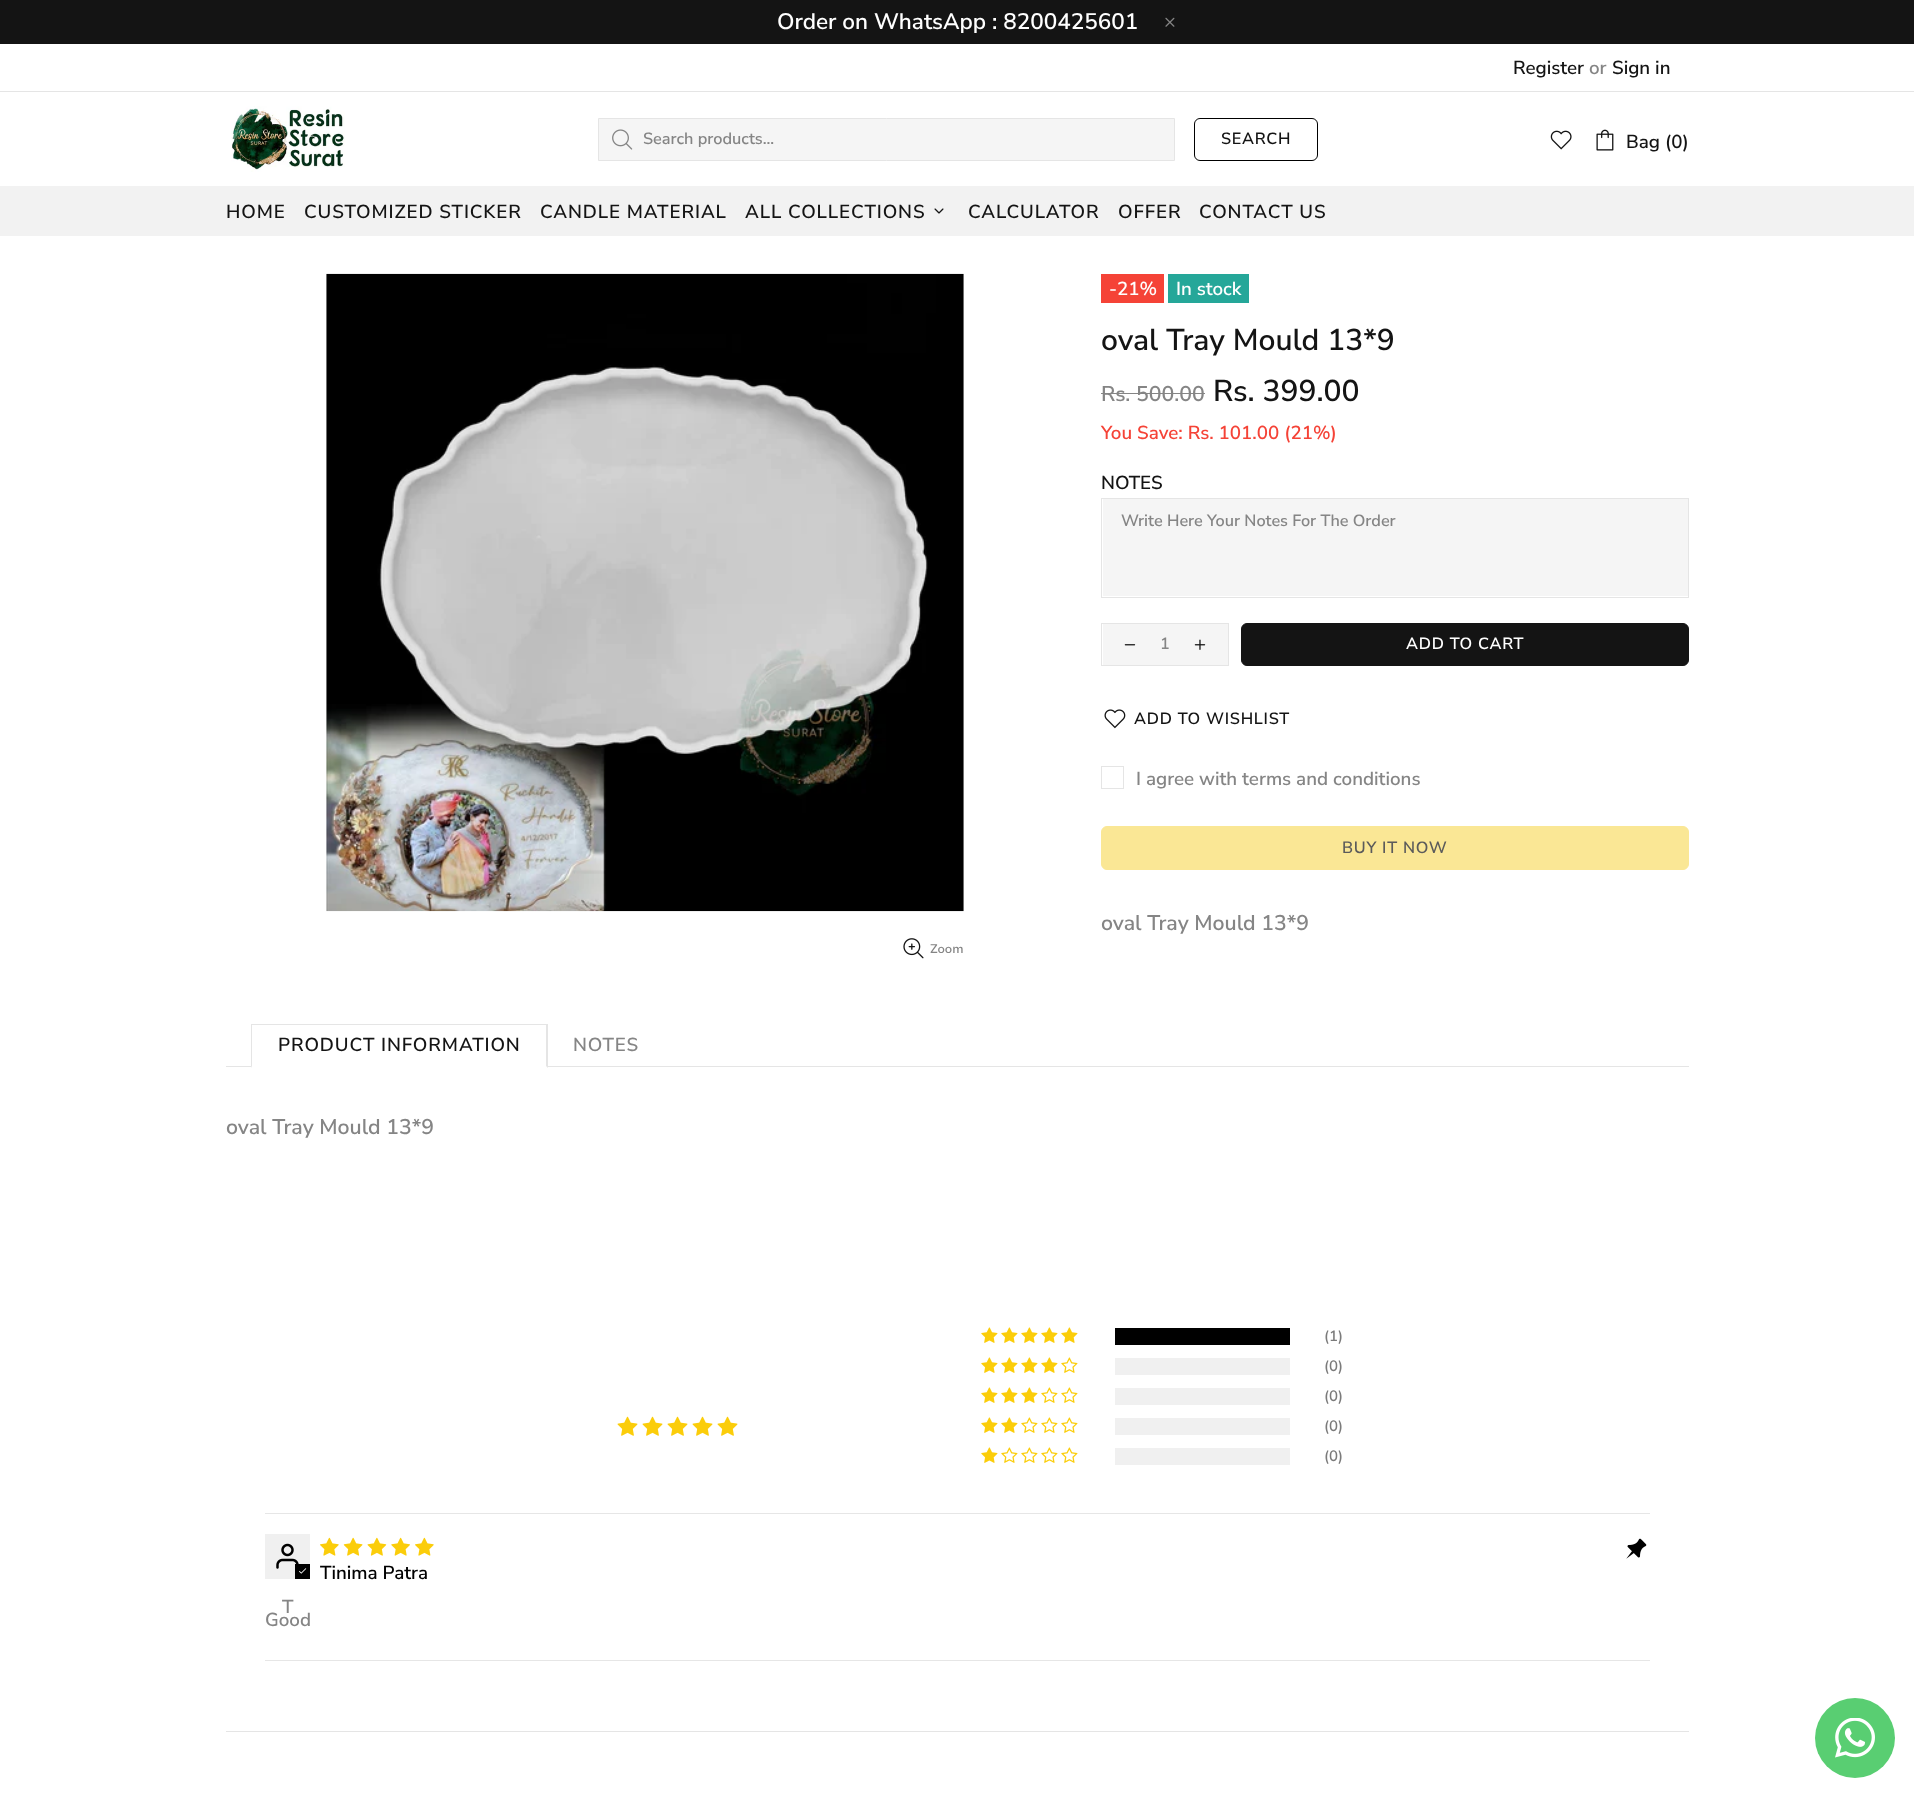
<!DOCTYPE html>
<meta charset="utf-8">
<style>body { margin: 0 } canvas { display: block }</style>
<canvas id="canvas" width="1914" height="1797"></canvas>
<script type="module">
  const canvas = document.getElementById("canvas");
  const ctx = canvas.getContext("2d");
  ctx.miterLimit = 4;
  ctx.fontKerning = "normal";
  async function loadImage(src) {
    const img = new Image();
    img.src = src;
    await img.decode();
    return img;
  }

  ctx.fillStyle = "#ffffff";
  ctx.fillRect(0, 0, 1914, 1797);
  ctx.fillStyle = "#141414";
  ctx.fillRect(0, 0, 1914, 44);
  ctx.font = "600 22.5px Nunito Sans";
  ctx.fillStyle = "#ffffff";
  ctx.fillText("Order on WhatsApp : 8200425601", 777, 29);
  ctx.drawImage(await loadImage("img1.png"), 1165, 17, 10, 10);
  ctx.fillStyle = "#e5e5e5";
  ctx.fillRect(0, 91, 1914, 1);
  ctx.font = "600 18.75px Nunito Sans";
  ctx.fillStyle = "#141414";
  ctx.fillText("Register", 1513, 74);
  ctx.fillStyle = "#858585";
  ctx.fillText("or", 1589, 74);
  ctx.fillStyle = "#141414";
  ctx.fillText("Sign in", 1612, 74);
  ctx.drawImage(await loadImage("img2.png"), 231, 106, 114, 66);
  ctx.fillStyle = "#f5f5f5";
  ctx.beginPath();
  ctx.rect(598.5, 118.5, 576, 42);
  ctx.fill();
  ctx.strokeStyle = "#e5e5e5";
  ctx.stroke();
  ctx.drawImage(await loadImage("img3.png"), 612, 129, 21, 21);
  ctx.font = "600 16.25px Nunito Sans";
  ctx.fillStyle = "#858585";
  ctx.fillText("Search products...", 643, 144);
  ctx.beginPath();
  ctx.roundRect(1194.5, 118.5, 123, 42, 5.5);
  ctx.strokeStyle = "#000000";
  ctx.stroke();
  ctx.letterSpacing = "0.75px";
  ctx.fillStyle = "#141414";
  ctx.fillText("SEARCH", 1221, 144);
  ctx.drawImage(await loadImage("img4.png"), 1550, 130, 22, 20);
  ctx.drawImage(await loadImage("img5.png"), 1596, 129, 18, 22);
  ctx.letterSpacing = "0px";
  ctx.font = "600 18.75px Nunito Sans";
  ctx.fillText("Bag (0)", 1626, 148);
  ctx.fillStyle = "#f2f2f2";
  ctx.fillRect(0, 186, 1914, 50);
  ctx.letterSpacing = "0.9px";
  ctx.fillStyle = "#141414";
  ctx.fillText("HOME", 226, 218);
  ctx.fillText("CUSTOMIZED STICKER", 304, 218);
  ctx.fillText("CANDLE MATERIAL", 540, 218);
  ctx.fillText("ALL COLLECTIONS", 745, 218);
  ctx.drawImage(await loadImage("img6.png"), 934, 208, 10, 6);
  ctx.fillText("CALCULATOR", 968, 218);
  ctx.fillText("OFFER", 1118, 218);
  ctx.fillText("CONTACT US", 1199, 218);
  ctx.fillStyle = "#f54337";
  ctx.fillRect(1101, 274, 63, 29);
  ctx.letterSpacing = "0px";
  ctx.fillStyle = "#ffffff";
  ctx.fillText("-21%", 1109, 295);
  ctx.fillStyle = "#25a799";
  ctx.fillRect(1168, 274, 81, 29);
  ctx.fillStyle = "#ffffff";
  ctx.fillText("In stock", 1176, 295);
  ctx.font = "600 30px Nunito Sans";
  ctx.fillStyle = "#141414";
  ctx.fillText("oval Tray Mould 13*9", 1101, 350);
  ctx.font = "600 21.25px Nunito Sans";
  ctx.fillStyle = "#858585";
  ctx.fillText("Rs. 500.00", 1101, 401);
  ctx.fillRect(1101, 393, 104, 1);
  ctx.font = "600 30px Nunito Sans";
  ctx.fillStyle = "#141414";
  ctx.fillText("Rs. 399.00", 1213, 401);
  ctx.font = "600 18.75px Nunito Sans";
  ctx.fillStyle = "#f54337";
  ctx.fillText("You Save: Rs. 101.00 (21%)", 1101, 439);
  ctx.fillStyle = "#141414";
  ctx.fillText("NOTES", 1101, 489);
  ctx.fillStyle = "#f5f5f5";
  ctx.fillRect(1103, 499, 585, 97);
  ctx.strokeStyle = "#e5e5e5";
  ctx.strokeRect(1101.5, 498.5, 587, 99);
  ctx.font = "600 16.25px Nunito Sans";
  ctx.fillStyle = "#858585";
  ctx.fillText("Write Here Your Notes For The Order", 1121, 526);
  ctx.fillStyle = "#f5f5f5";
  ctx.fillRect(1103, 624, 125, 41);
  ctx.strokeRect(1101.5, 623.5, 127, 42);
  ctx.drawImage(await loadImage("img7.png"), 1124, 644, 12, 2);
  ctx.fillStyle = "#858585";
  ctx.fillText("1", 1160, 649);
  ctx.drawImage(await loadImage("img8.png"), 1194, 639, 12, 11);
  ctx.fillStyle = "#141414";
  ctx.beginPath();
  ctx.roundRect(1241.5, 623.5, 447, 42, 5.5);
  ctx.fill();
  ctx.strokeStyle = "#141414";
  ctx.stroke();
  ctx.letterSpacing = "0.75px";
  ctx.fillStyle = "#ffffff";
  ctx.fillText("ADD TO CART", 1406, 649);
  ctx.drawImage(await loadImage("img9.png"), 1104, 709, 22, 20);
  ctx.fillStyle = "#141414";
  ctx.fillText("ADD TO WISHLIST", 1134, 724);
  ctx.strokeStyle = "#e5e5e5";
  ctx.strokeRect(1101.5, 766.5, 22, 22);
  ctx.letterSpacing = "0px";
  ctx.font = "600 18.75px Nunito Sans";
  ctx.fillStyle = "#858585";
  ctx.fillText("I agree with terms and conditions", 1136, 785);
  ctx.fillStyle = "#fae795";
  ctx.beginPath();
  ctx.roundRect(1101.5, 826.5, 587, 43, 5.5);
  ctx.fill();
  ctx.strokeStyle = "#fae795";
  ctx.stroke();
  ctx.letterSpacing = "0.75px";
  ctx.font = "600 16.25px Nunito Sans";
  ctx.fillStyle = "#5b5b5b";
  ctx.fillText("BUY IT NOW", 1342, 853);
  ctx.letterSpacing = "0px";
  ctx.font = "600 21.25px Nunito Sans";
  ctx.fillStyle = "#858585";
  ctx.fillText("oval Tray Mould 13*9", 1101, 930);
  ctx.drawImage(await loadImage("img10.png"), 326, 273, 638, 639);
  ctx.drawImage(await loadImage("img11.png"), 903, 938, 21, 21);
  ctx.font = "600 12.5px 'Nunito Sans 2'";
  ctx.fillText("Zoom", 930, 953);
  ctx.fillStyle = "#e5e5e5";
  ctx.fillRect(226, 1066, 1463, 1);
  ctx.fillStyle = "#ffffff";
  ctx.fillRect(251, 1066, 297, 1);
  ctx.fillStyle = "#e5e5e5";
  ctx.fillRect(251, 1024, 297, 1);
  ctx.beginPath();
  ctx.moveTo(548, 1024);
  ctx.lineTo(548, 1068);
  ctx.lineTo(546, 1066);
  ctx.lineTo(546, 1025);
  ctx.closePath();
  ctx.fill();
  ctx.beginPath();
  ctx.moveTo(251, 1068);
  ctx.lineTo(251, 1024);
  ctx.lineTo(252, 1025);
  ctx.lineTo(252, 1066);
  ctx.closePath();
  ctx.fill();
  ctx.letterSpacing = "0.9px";
  ctx.font = "600 18.75px Nunito Sans";
  ctx.fillStyle = "#141414";
  ctx.fillText("PRODUCT INFORMATION", 278, 1051);
  ctx.fillStyle = "#858585";
  ctx.fillText("NOTES", 573, 1051);
  ctx.letterSpacing = "0px";
  ctx.font = "600 21.25px Nunito Sans";
  ctx.fillText("oval Tray Mould 13*9", 226, 1134);
  ctx.drawImage(await loadImage("img12.png"), 617, 1416, 21, 20);
  ctx.drawImage(await loadImage("img12.png"), 642, 1416, 21, 20);
  ctx.drawImage(await loadImage("img12.png"), 667, 1416, 21, 20);
  ctx.drawImage(await loadImage("img12.png"), 692, 1416, 21, 20);
  ctx.drawImage(await loadImage("img12.png"), 717, 1416, 21, 20);
  ctx.drawImage(await loadImage("img13.png"), 981, 1327, 17, 16);
  ctx.drawImage(await loadImage("img13.png"), 1001, 1327, 17, 16);
  ctx.drawImage(await loadImage("img13.png"), 1021, 1327, 17, 16);
  ctx.drawImage(await loadImage("img13.png"), 1041, 1327, 17, 16);
  ctx.drawImage(await loadImage("img13.png"), 1061, 1327, 17, 16);
  ctx.fillStyle = "#000000";
  ctx.fillRect(1115, 1328, 175, 17);
  ctx.font = "600 15px Nunito Sans";
  ctx.fillStyle = "#7b7b7b";
  ctx.fillText("(1)", 1324, 1341);
  ctx.drawImage(await loadImage("img13.png"), 981, 1357, 17, 16);
  ctx.drawImage(await loadImage("img13.png"), 1001, 1357, 17, 16);
  ctx.drawImage(await loadImage("img13.png"), 1021, 1357, 17, 16);
  ctx.drawImage(await loadImage("img13.png"), 1041, 1357, 17, 16);
  ctx.drawImage(await loadImage("img14.png"), 1061, 1357, 17, 16);
  ctx.fillStyle = "#f0f0f0";
  ctx.fillRect(1115, 1358, 175, 17);
  ctx.fillStyle = "#7b7b7b";
  ctx.fillText("(0)", 1324, 1371);
  ctx.drawImage(await loadImage("img13.png"), 981, 1387, 17, 16);
  ctx.drawImage(await loadImage("img13.png"), 1001, 1387, 17, 16);
  ctx.drawImage(await loadImage("img13.png"), 1021, 1387, 17, 16);
  ctx.drawImage(await loadImage("img14.png"), 1041, 1387, 17, 16);
  ctx.drawImage(await loadImage("img14.png"), 1061, 1387, 17, 16);
  ctx.fillStyle = "#f0f0f0";
  ctx.fillRect(1115, 1388, 175, 17);
  ctx.fillStyle = "#7b7b7b";
  ctx.fillText("(0)", 1324, 1401);
  ctx.drawImage(await loadImage("img13.png"), 981, 1417, 17, 16);
  ctx.drawImage(await loadImage("img13.png"), 1001, 1417, 17, 16);
  ctx.drawImage(await loadImage("img14.png"), 1021, 1417, 17, 16);
  ctx.drawImage(await loadImage("img14.png"), 1041, 1417, 17, 16);
  ctx.drawImage(await loadImage("img14.png"), 1061, 1417, 17, 16);
  ctx.fillStyle = "#f0f0f0";
  ctx.fillRect(1115, 1418, 175, 17);
  ctx.fillStyle = "#7b7b7b";
  ctx.fillText("(0)", 1324, 1431);
  ctx.drawImage(await loadImage("img13.png"), 981, 1447, 17, 16);
  ctx.drawImage(await loadImage("img14.png"), 1001, 1447, 17, 16);
  ctx.drawImage(await loadImage("img14.png"), 1021, 1447, 17, 16);
  ctx.drawImage(await loadImage("img14.png"), 1041, 1447, 17, 16);
  ctx.drawImage(await loadImage("img14.png"), 1061, 1447, 17, 16);
  ctx.fillStyle = "#f0f0f0";
  ctx.fillRect(1115, 1448, 175, 17);
  ctx.fillStyle = "#7b7b7b";
  ctx.fillText("(0)", 1324, 1461);
  ctx.fillStyle = "#e6e6e6";
  ctx.fillRect(265, 1513, 1385, 1);
  ctx.drawImage(await loadImage("img15.png"), 320, 1537, 19, 19);
  ctx.drawImage(await loadImage("img16.png"), 343, 1537, 20, 19);
  ctx.drawImage(await loadImage("img17.png"), 367, 1537, 20, 19);
  ctx.drawImage(await loadImage("img18.png"), 391, 1537, 19, 19);
  ctx.drawImage(await loadImage("img15.png"), 415, 1537, 19, 19);
  ctx.drawImage(await loadImage("img19.png"), 1626, 1538, 21, 21);
  ctx.font = "600 18.75px Nunito Sans";
  ctx.fillStyle = "#000000";
  ctx.fillText("Tinima Patra", 320, 1579);
  ctx.fillStyle = "#f0f0f0";
  ctx.fillRect(265, 1534, 45, 45);
  ctx.drawImage(await loadImage("img20.png"), 276, 1543, 23, 26);
  ctx.fillStyle = "#000000";
  ctx.fillRect(295, 1564, 15, 15);
  ctx.drawImage(await loadImage("img21.png"), 299, 1568, 8, 6);
  ctx.fillStyle = "#858585";
  ctx.fillText("T", 282, 1613);
  ctx.fillText("Good", 265, 1626);
  ctx.fillStyle = "#e6e6e6";
  ctx.fillRect(265, 1660, 1385, 1);
  ctx.fillStyle = "#e5e5e5";
  ctx.fillRect(226, 1731, 1463, 1);
  ctx.fillStyle = "#59ce72";
  ctx.beginPath();
  ctx.arc(1855, 1738, 40, 0, Math.PI * 2);
  ctx.fill();
  ctx.drawImage(await loadImage("img22.png"), 1835, 1718, 40, 40);
</script>
